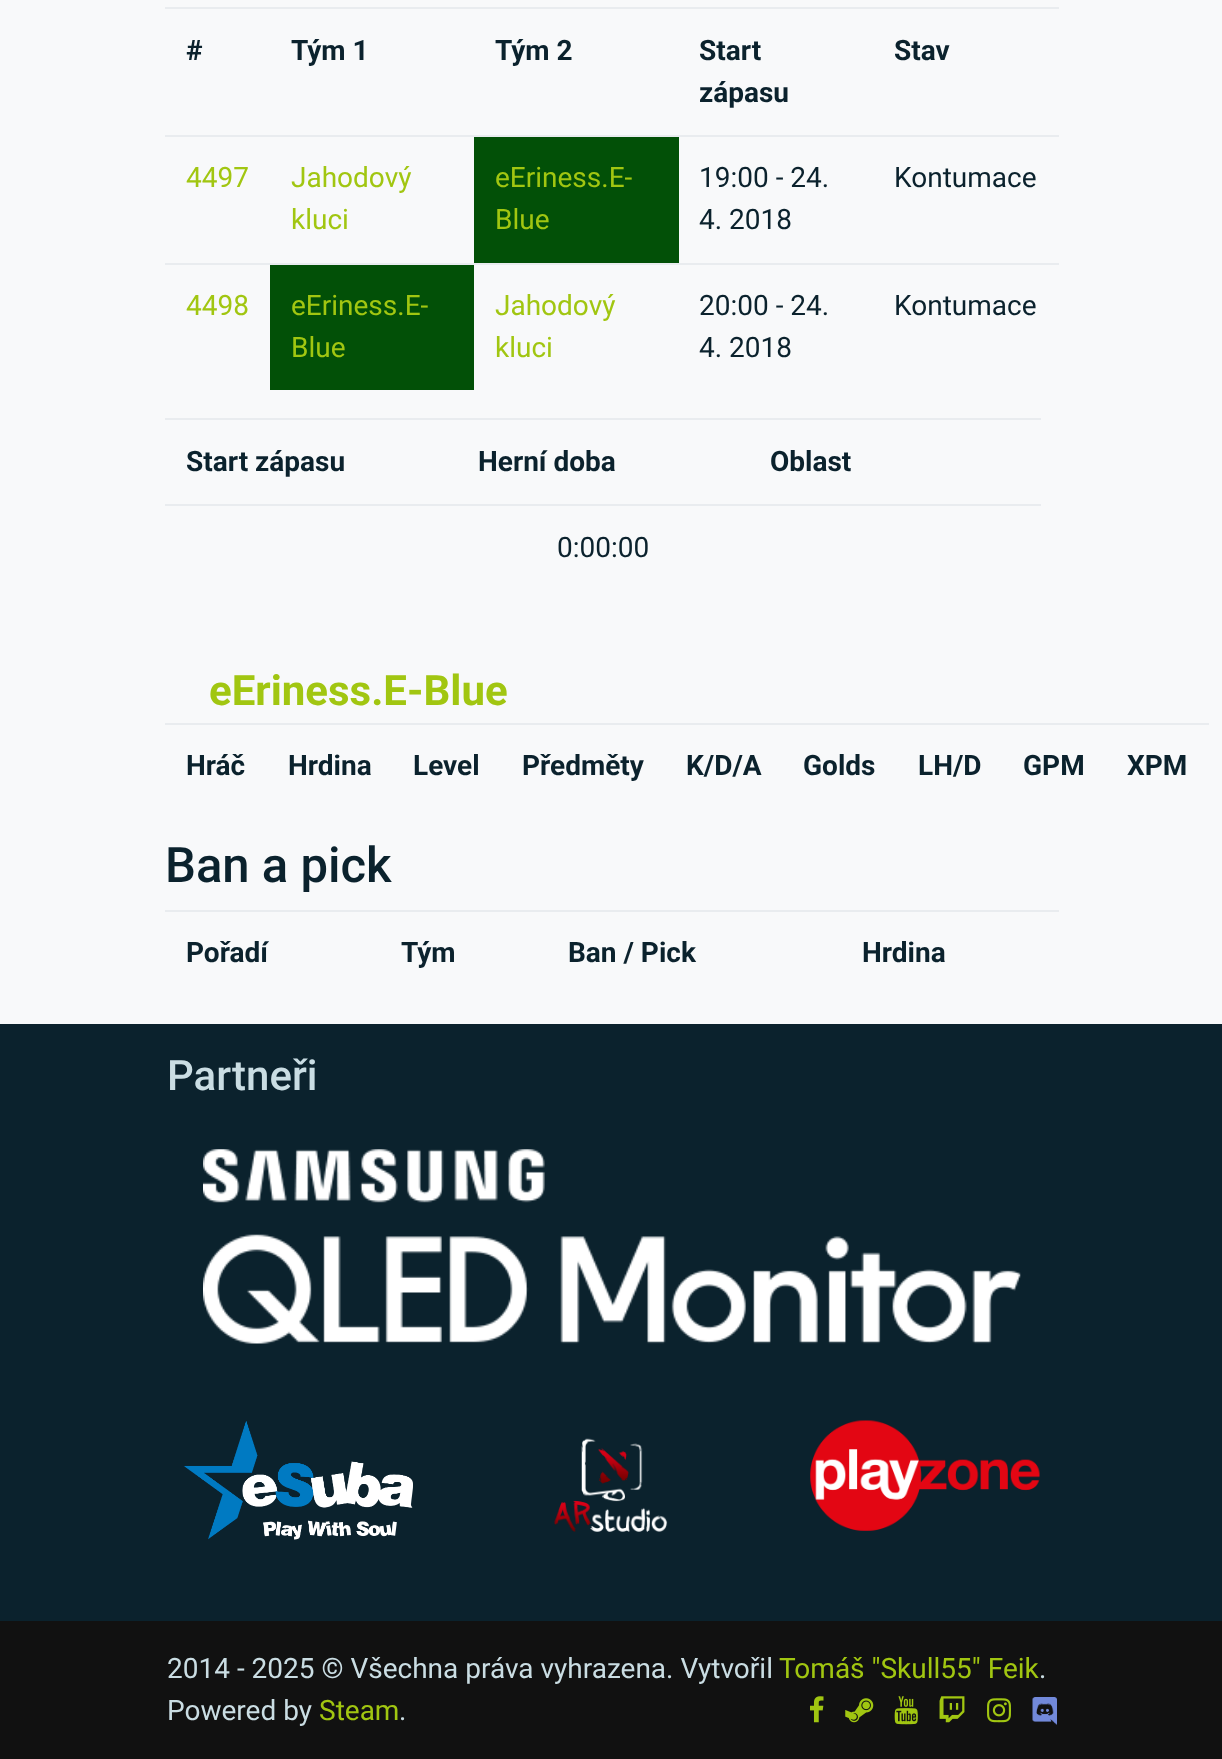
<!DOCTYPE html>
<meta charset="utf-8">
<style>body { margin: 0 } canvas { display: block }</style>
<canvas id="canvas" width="1222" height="1759"></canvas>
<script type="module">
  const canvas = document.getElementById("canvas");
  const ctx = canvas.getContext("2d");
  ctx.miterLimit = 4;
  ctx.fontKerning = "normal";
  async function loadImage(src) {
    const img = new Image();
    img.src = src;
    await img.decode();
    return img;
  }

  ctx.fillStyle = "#f8f9fa";
  ctx.fillRect(0, 0, 1222, 1759);
  ctx.font = "bold 28px Roboto";
  ctx.fillStyle = "#0b222d";
  ctx.fillText("#", 186, 60);
  ctx.fillText("Tým 1", 291, 60);
  ctx.fillText("Tým 2", 495, 60);
  ctx.fillText("Start", 699, 60);
  ctx.fillText("zápasu", 699, 102);
  ctx.fillStyle = "#e9ecef";
  ctx.fillRect(165, 7, 894, 2);
  ctx.fillStyle = "#0b222d";
  ctx.fillText("Stav", 894, 60);
  ctx.font = "28px Roboto";
  ctx.fillStyle = "#a1c611";
  ctx.fillText("4497", 186, 187);
  ctx.fillText("Jahodový", 291, 187);
  ctx.fillText("kluci", 291, 229);
  ctx.fillStyle = "#025007";
  ctx.fillRect(474, 137, 205, 126);
  ctx.fillStyle = "#a1c611";
  ctx.fillText("eEriness.E-", 495, 187);
  ctx.fillText("Blue", 495, 229);
  ctx.fillStyle = "#0b222d";
  ctx.fillText("19:00 - 24.", 699, 187);
  ctx.fillText("4. 2018", 699, 229);
  ctx.fillStyle = "#e9ecef";
  ctx.fillRect(165, 135, 894, 2);
  ctx.fillStyle = "#0b222d";
  ctx.fillText("Kontumace", 894, 187);
  ctx.fillStyle = "#a1c611";
  ctx.fillText("4498", 186, 315);
  ctx.fillStyle = "#025007";
  ctx.fillRect(270, 265, 204, 125);
  ctx.fillStyle = "#a1c611";
  ctx.fillText("eEriness.E-", 291, 315);
  ctx.fillText("Blue", 291, 357);
  ctx.fillText("Jahodový", 495, 315);
  ctx.fillText("kluci", 495, 357);
  ctx.fillStyle = "#0b222d";
  ctx.fillText("20:00 - 24.", 699, 315);
  ctx.fillText("4. 2018", 699, 357);
  ctx.fillStyle = "#e9ecef";
  ctx.fillRect(165, 263, 894, 2);
  ctx.fillStyle = "#0b222d";
  ctx.fillText("Kontumace", 894, 315);
  ctx.font = "bold 28px Roboto";
  ctx.fillText("Start zápasu", 186, 471);
  ctx.fillText("Herní doba", 478, 471);
  ctx.fillStyle = "#e9ecef";
  ctx.fillRect(165, 418, 876, 2);
  ctx.fillStyle = "#0b222d";
  ctx.fillText("Oblast", 770, 471);
  ctx.fillStyle = "#e9ecef";
  ctx.fillRect(165, 504, 876, 2);
  ctx.font = "28px Roboto";
  ctx.fillStyle = "#0b222d";
  ctx.fillText("0:00:00", 557, 557);
  ctx.font = "bold 42px Roboto";
  ctx.fillStyle = "#a1c611";
  ctx.fillText("eEriness.E-Blue", 209, 705);
  ctx.font = "bold 28px Roboto";
  ctx.fillStyle = "#0b222d";
  ctx.fillText("Hráč", 186, 775);
  ctx.fillText("Hrdina", 288, 775);
  ctx.fillText("Level", 413, 775);
  ctx.fillText("Předměty", 522, 775);
  ctx.fillText("K/D/A", 686, 775);
  ctx.fillText("Golds", 803, 775);
  ctx.fillText("LH/D", 918, 775);
  ctx.fillText("GPM", 1023, 775);
  ctx.fillStyle = "#e9ecef";
  ctx.fillRect(165, 723, 1044, 2);
  ctx.fillStyle = "#0b222d";
  ctx.fillText("XPM", 1127, 775);
  ctx.font = "500 49px Roboto";
  ctx.fillText("Ban a pick", 165, 882);
  ctx.font = "bold 28px Roboto";
  ctx.fillText("Pořadí", 186, 962);
  ctx.fillText("Tým", 401, 962);
  ctx.fillText("Ban / Pick", 568, 962);
  ctx.fillStyle = "#e9ecef";
  ctx.fillRect(165, 910, 894, 2);
  ctx.fillStyle = "#0b222d";
  ctx.fillText("Hrdina", 862, 962);
  ctx.fillRect(0, 1024, 1222, 597);
  ctx.font = "500 42px Roboto";
  ctx.fillStyle = "#cadde3";
  ctx.fillText("Partneři", 167, 1090);
  ctx.drawImage(await loadImage("img1.png"), 203, 1149, 818, 195);
  ctx.drawImage(await loadImage("img2.png"), 183, 1421, 230, 119);
  ctx.drawImage(await loadImage("img3.png"), 554, 1438, 114, 94);
  ctx.drawImage(await loadImage("img4.png"), 810, 1420, 230, 111);
  ctx.fillStyle = "#111111";
  ctx.fillRect(0, 1621, 1222, 138);
  ctx.font = "28px Roboto";
  ctx.fillStyle = "#cadde3";
  ctx.fillText("2014 - 2025 © Všechna práva vyhrazena. Vytvořil", 167, 1678);
  ctx.fillStyle = "#a1c611";
  ctx.fillText("Tomáš \"Skull55\" Feik", 779, 1678);
  ctx.fillStyle = "#cadde3";
  ctx.fillText(".", 1039, 1678);
  ctx.fillText("Powered by", 167, 1720);
  ctx.fillStyle = "#a1c611";
  ctx.fillText("Steam", 319, 1720);
  ctx.fillStyle = "#cadde3";
  ctx.fillText(".", 399, 1720);
  ctx.drawImage(await loadImage("img5.png"), 810, 1696, 14, 27);
  ctx.drawImage(await loadImage("img6.png"), 845, 1698, 29, 25);
  ctx.drawImage(await loadImage("img7.png"), 894, 1696, 24, 29);
  ctx.drawImage(await loadImage("img8.png"), 939, 1696, 26, 27);
  ctx.drawImage(await loadImage("img9.png"), 987, 1698, 24, 25);
  ctx.drawImage(await loadImage("img10.png"), 1032, 1697, 25, 28);
</script>
